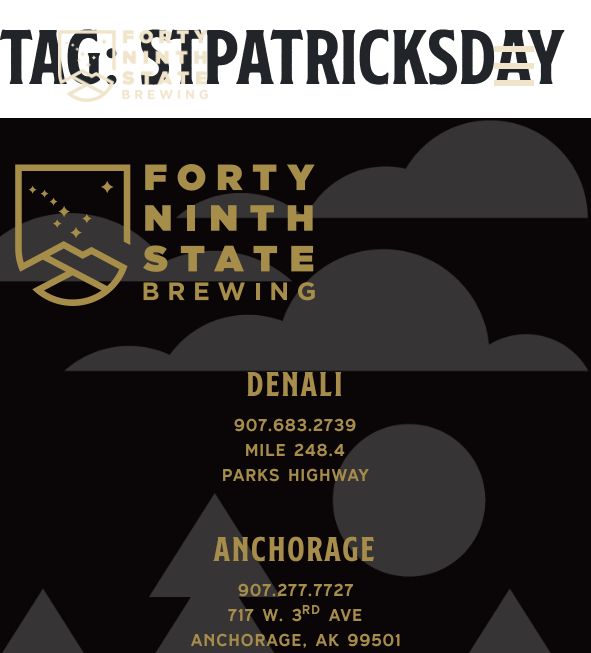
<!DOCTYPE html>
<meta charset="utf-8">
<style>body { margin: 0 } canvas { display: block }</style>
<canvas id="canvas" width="591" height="653"></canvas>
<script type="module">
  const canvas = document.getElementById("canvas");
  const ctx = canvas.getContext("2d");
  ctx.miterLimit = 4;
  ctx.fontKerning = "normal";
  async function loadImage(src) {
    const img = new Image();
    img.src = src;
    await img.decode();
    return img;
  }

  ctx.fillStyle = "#ffffff";
  ctx.fillRect(0, 0, 591, 653);
  ctx.letterSpacing = "2px";
  ctx.font = "90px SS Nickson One";
  ctx.fillStyle = "#212529";
  ctx.fillText("Tag: stpatricksday", 0, 84);
  ctx.drawImage(await loadImage("img1.png"), 58, 30, 150, 72);
  ctx.fillStyle = "#f0e4ca";
  ctx.fillRect(494, 63, 40, 6);
  ctx.fillRect(494, 46, 40, 6);
  ctx.fillRect(494, 80, 40, 6);
  ctx.fillStyle = "#0a0608";
  ctx.fillRect(0, 118, 591, 535);
  ctx.drawImage(await loadImage("img2.png"), 0, 120, 589, 533);
  ctx.drawImage(await loadImage("img3.png"), 15, 164, 300, 142);
  ctx.letterSpacing = "3px";
  ctx.font = "40px SS Nickson One";
  ctx.fillStyle = "#a68d4b";
  ctx.fillText("Denali", 247, 396);
  ctx.letterSpacing = "1.25px";
  ctx.font = "20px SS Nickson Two";
  ctx.fillText("907.683.2739", 234, 431);
  ctx.fillText("Mile 248.4", 245, 456);
  ctx.fillText("Parks Highway", 222, 481);
  ctx.letterSpacing = "3px";
  ctx.font = "40px SS Nickson One";
  ctx.fillText("ANCHORAGE", 214, 561);
  ctx.letterSpacing = "1.25px";
  ctx.font = "20px SS Nickson Two";
  ctx.fillText("907.277.7727", 238, 596);
  ctx.fillText("717 W. 3", 228, 621);
  ctx.font = "15px SS Nickson Two";
  ctx.fillText("rd", 302, 614);
  ctx.font = "20px SS Nickson Two";
  ctx.fillText("Ave", 329, 621);
  ctx.fillText("Anchorage, AK 99501", 191, 646);
</script>
